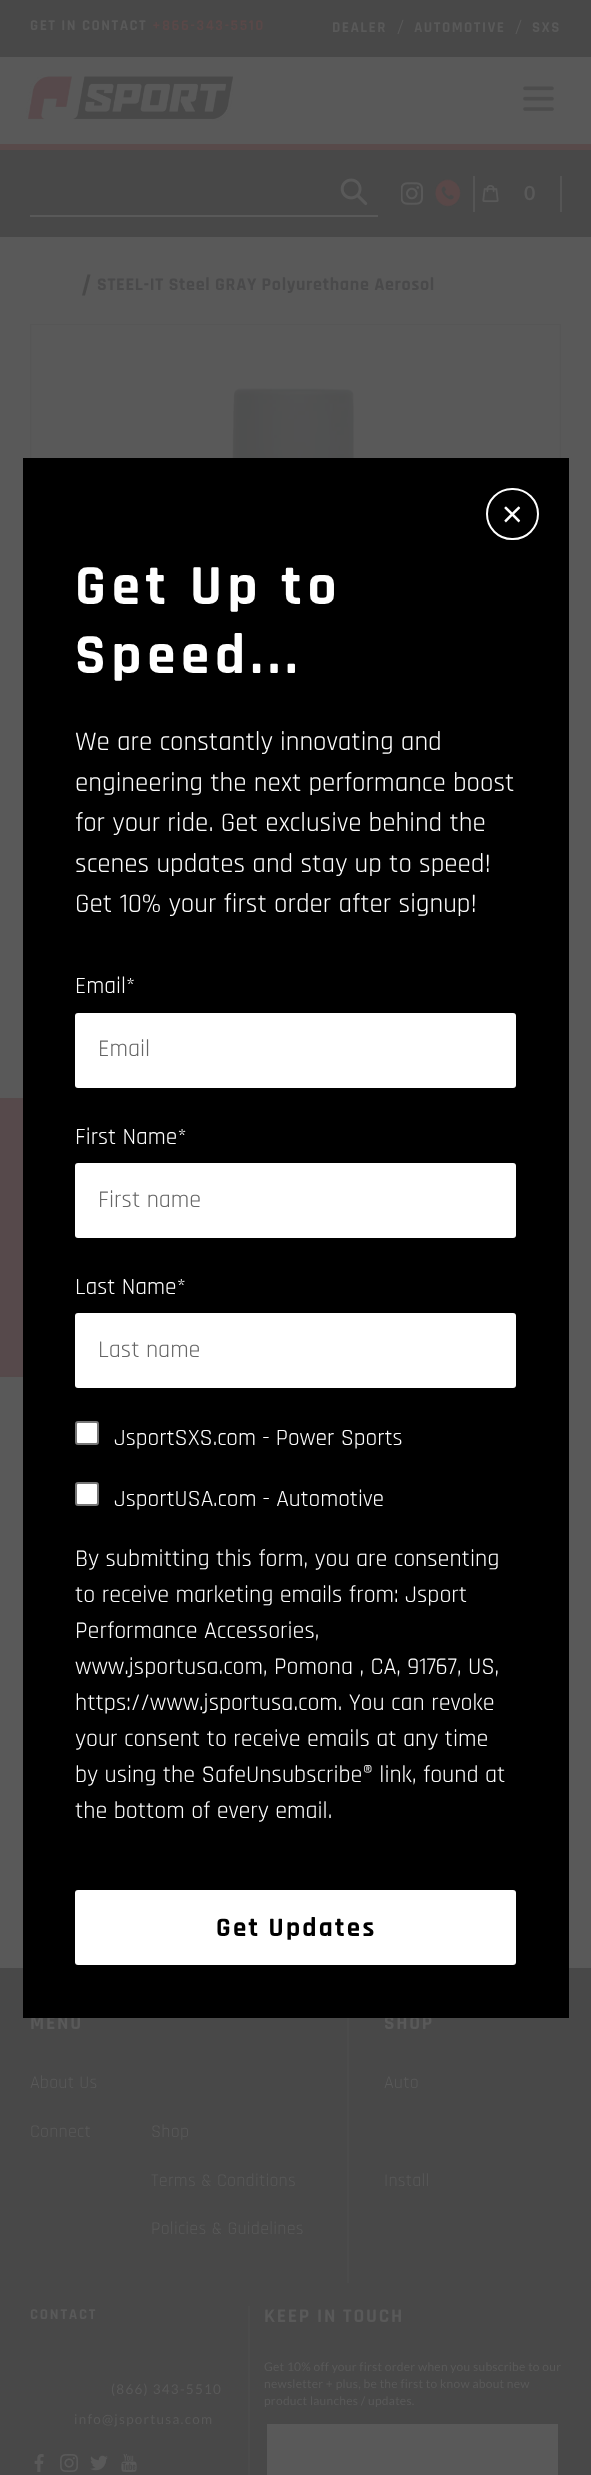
<!DOCTYPE html>
<meta charset="utf-8">
<style>body { margin: 0 } canvas { display: block }</style>
<canvas id="canvas" width="591" height="2475"></canvas>
<script type="module">
  const canvas = document.getElementById("canvas");
  const ctx = canvas.getContext("2d");
  ctx.miterLimit = 4;
  ctx.fontKerning = "normal";
  async function loadImage(src) {
    const img = new Image();
    img.src = src;
    await img.decode();
    return img;
  }

  ctx.fillStyle = "#595959";
  ctx.fillRect(0, 0, 591, 2475);
  ctx.fillStyle = "#484848";
  ctx.fillRect(0, 0, 591, 57);
  ctx.letterSpacing = "1.5px";
  ctx.font = "bold 15px Rajdhani";
  ctx.fillStyle = "#595959";
  ctx.fillText("GET IN CONTACT", 30, 30);
  ctx.fillStyle = "#594848";
  ctx.fillText("+866-343-5510", 152, 30);
  ctx.fillStyle = "#595959";
  ctx.fillText("DEALER", 332, 32);
  ctx.letterSpacing = "0px";
  ctx.font = "22px Rajdhani";
  ctx.fillText("/", 396, 34);
  ctx.letterSpacing = "1.5px";
  ctx.font = "bold 15px Rajdhani";
  ctx.fillText("AUTOMOTIVE", 414, 32);
  ctx.letterSpacing = "0px";
  ctx.font = "22px Rajdhani";
  ctx.fillText("/", 514, 34);
  ctx.letterSpacing = "1.5px";
  ctx.font = "bold 15px Rajdhani";
  ctx.fillText("SXS", 532, 32);
  ctx.drawImage(await loadImage("img1.png"), 26, 75, 207, 46);
  ctx.drawImage(await loadImage("img2.png"), 523, 86, 31, 25);
  ctx.fillStyle = "#484848";
  ctx.fillRect(0, 150, 591, 87);
  ctx.fillStyle = "#584a4a";
  ctx.fillRect(0, 144, 591, 6);
  ctx.drawImage(await loadImage("img3.png"), 340, 178, 28, 28);
  ctx.fillStyle = "#595959";
  ctx.fillRect(30, 215, 348, 2);
  ctx.drawImage(await loadImage("img4.png"), 401, 182, 22, 23);
  ctx.drawImage(await loadImage("img5.png"), 435, 179, 26, 28);
  ctx.fillStyle = "#555555";
  ctx.fillRect(560, 176, 2, 36);
  ctx.fillRect(473, 176, 2, 36);
  ctx.drawImage(await loadImage("img6.png"), 482, 185, 17, 18);
  ctx.letterSpacing = "0px";
  ctx.font = "bold 19.5px Lato";
  ctx.fillStyle = "#595959";
  ctx.fillText("0", 524, 200);
  ctx.fillStyle = "#484848";
  ctx.beginPath();
  ctx.moveTo(87.5, 274.5);
  ctx.lineTo(90.5, 274.5);
  ctx.lineTo(85, 295.5);
  ctx.lineTo(82, 295.5);
  ctx.closePath();
  ctx.fill();
  ctx.letterSpacing = "0.7px";
  ctx.font = "bold 18px Rajdhani";
  ctx.fillStyle = "#49494a";
  ctx.fillText("STEEL-IT Steel GRAY Polyurethane Aerosol", 97, 290);
  ctx.strokeStyle = "#565656";
  ctx.lineWidth = 2;
  ctx.strokeRect(31, 325, 529, 529);
  ctx.drawImage(await loadImage("img7.png"), 31, 325, 529, 133);
  ctx.fillStyle = "#484848";
  ctx.fillRect(0, 1968, 591, 507);
  ctx.fillStyle = "#4b4b4b";
  ctx.fillRect(347, 2013, 2, 270);
  ctx.letterSpacing = "1.75px";
  ctx.font = "bold 19.5px Rajdhani";
  ctx.fillStyle = "#595959";
  ctx.fillText("MENU", 30, 2029);
  ctx.letterSpacing = "0.25px";
  ctx.font = "18px Rajdhani";
  ctx.fillText("About Us", 30, 2088);
  ctx.fillText("Connect", 30, 2137);
  ctx.fillText("Shop", 151, 2137);
  ctx.fillText("Terms & Conditions", 151, 2186);
  ctx.fillText("Policies & Guidelines", 151, 2234);
  ctx.letterSpacing = "1.75px";
  ctx.font = "bold 19.5px Rajdhani";
  ctx.fillText("SHOP", 384, 2029);
  ctx.letterSpacing = "0.25px";
  ctx.font = "18px Rajdhani";
  ctx.fillText("Auto", 384, 2088);
  ctx.fillText("Install", 384, 2186);
  ctx.letterSpacing = "1.75px";
  ctx.font = "bold 15px Rajdhani";
  ctx.fillText("CONTACT", 30, 2319);
  ctx.letterSpacing = "1.25px";
  ctx.font = "13.5px Lato";
  ctx.fillText("(866) 343-5510", 111, 2394);
  ctx.fillText("info@jsportusa.com", 74, 2424);
  ctx.drawImage(await loadImage("img8.png"), 34, 2454, 10, 18);
  ctx.drawImage(await loadImage("img9.png"), 60, 2454, 18, 18);
  ctx.drawImage(await loadImage("img10.png"), 90, 2455, 18, 16);
  ctx.drawImage(await loadImage("img11.png"), 121, 2454, 16, 18);
  ctx.fillStyle = "#4b4b4b";
  ctx.fillRect(248, 2306, 2, 169);
  ctx.letterSpacing = "1.75px";
  ctx.font = "bold 19.5px Rajdhani";
  ctx.fillStyle = "#595959";
  ctx.fillText("KEEP IN TOUCH", 264, 2322);
  ctx.letterSpacing = "0.25px";
  ctx.font = "12px Lato";
  ctx.fillText("Get 10% off your first order when you subscribe to our", 264, 2371);
  ctx.fillText("newsletter + plus, be the first to know about new", 264, 2388);
  ctx.fillText("product launches / updates.", 264, 2405);
  ctx.fillRect(267, 2424, 291, 51);
  ctx.fillStyle = "#56494b";
  ctx.fillRect(0, 1098, 23, 279);
  ctx.beginPath();
  ctx.moveTo(-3, 1376);
  ctx.lineTo(-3, 1099);
  ctx.lineTo(55.5, 1099);
  ctx.lineTo(55.5, 1376);
  ctx.closePath();
  ctx.strokeStyle = "#56494b";
  ctx.lineWidth = 1.5;
  ctx.stroke();
  ctx.fillStyle = "#000000";
  ctx.fillRect(23, 458, 546, 1560);
  ctx.beginPath();
  ctx.roundRect(487, 489, 51, 50, 25);
  ctx.strokeStyle = "#ffffff";
  ctx.lineWidth = 2;
  ctx.stroke();
  ctx.letterSpacing = "0px";
  ctx.font = "52px Rajdhani";
  ctx.fillStyle = "#ffffff";
  ctx.fillText("×", 499, 531);
  ctx.letterSpacing = "5.75px";
  ctx.font = "bold 57px Rajdhani";
  ctx.fillText("Get Up to", 75, 604);
  ctx.fillText("Speed...", 75, 673);
  ctx.letterSpacing = "0px";
  ctx.font = "27px Rajdhani";
  ctx.fillText("We are constantly innovating and", 75, 750);
  ctx.fillText("engineering the next performance boost", 75, 791);
  ctx.fillText("for your ride. Get exclusive behind the", 75, 831);
  ctx.fillText("scenes updates and stay up to speed!", 75, 872);
  ctx.fillText("Get 10% your first order after signup!", 75, 912);
  ctx.font = "23.4px Rajdhani";
  ctx.fillText("Email*", 75, 993);
  ctx.beginPath();
  ctx.roundRect(75, 1013, 441, 75, 3);
  ctx.fill();
  ctx.font = "24px Rajdhani";
  ctx.fillStyle = "#666666";
  ctx.fillText("Email", 98, 1056);
  ctx.font = "23.4px Rajdhani";
  ctx.fillStyle = "#ffffff";
  ctx.fillText("First Name*", 75, 1144);
  ctx.beginPath();
  ctx.roundRect(75, 1163, 441, 75, 3);
  ctx.fill();
  ctx.font = "24px Rajdhani";
  ctx.fillStyle = "#666666";
  ctx.fillText("First name", 98, 1207);
  ctx.font = "23.4px Rajdhani";
  ctx.fillStyle = "#ffffff";
  ctx.fillText("Last Name*", 75, 1294);
  ctx.beginPath();
  ctx.roundRect(75, 1313, 441, 75, 3);
  ctx.fill();
  ctx.font = "24px Rajdhani";
  ctx.fillStyle = "#666666";
  ctx.fillText("Last name", 98, 1357);
  ctx.fillStyle = "#ffffff";
  ctx.beginPath();
  ctx.roundRect(76, 1422, 22, 22, 2);
  ctx.fill();
  ctx.strokeStyle = "#767676";
  ctx.stroke();
  ctx.font = "23.4px Rajdhani";
  ctx.fillText("JsportSXS.com - Power Sports", 114, 1445);
  ctx.beginPath();
  ctx.roundRect(76, 1483, 22, 22, 2);
  ctx.fill();
  ctx.stroke();
  ctx.fillText("JsportUSA.com - Automotive", 114, 1506);
  ctx.font = "24px Rajdhani";
  ctx.fillText("By submitting this form, you are consenting", 75, 1566);
  ctx.fillText("to receive marketing emails from: Jsport", 75, 1602);
  ctx.fillText("Performance Accessories,", 75, 1638);
  ctx.fillText("www.jsportusa.com, Pomona , CA, 91767, US,", 75, 1674);
  ctx.fillText("https://www.jsportusa.com. You can revoke", 75, 1710);
  ctx.fillText("your consent to receive emails at any time", 75, 1746);
  ctx.fillText("by using the SafeUnsubscribe® link, found at", 75, 1782);
  ctx.fillText("the bottom of every email.", 75, 1818);
  ctx.beginPath();
  ctx.roundRect(75, 1890, 441, 75, 3);
  ctx.fill();
  ctx.letterSpacing = "2.25px";
  ctx.font = "bold 27px Rajdhani";
  ctx.fillStyle = "#000000";
  ctx.fillText("Get Updates", 216, 1936);
</script>
